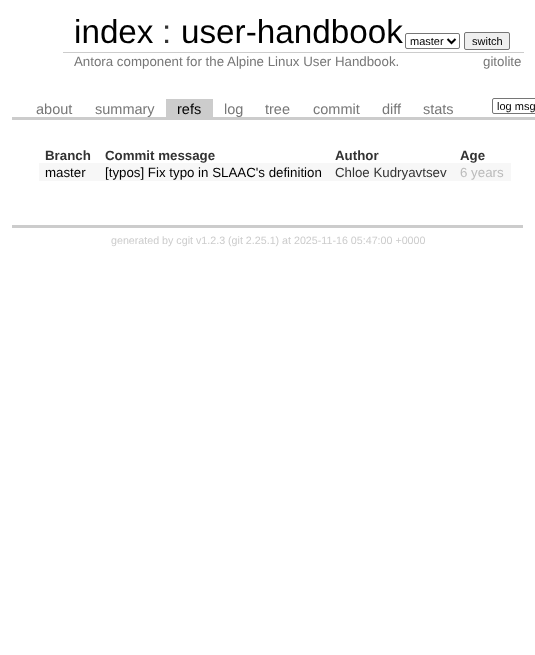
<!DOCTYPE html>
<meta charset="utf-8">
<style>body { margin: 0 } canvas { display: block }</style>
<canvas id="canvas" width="535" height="655"></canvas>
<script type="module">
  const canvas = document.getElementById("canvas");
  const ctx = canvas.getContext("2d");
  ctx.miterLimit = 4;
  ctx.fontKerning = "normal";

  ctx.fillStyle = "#ffffff";
  ctx.fillRect(0, 0, 535, 655);
  ctx.font = "33.25px Liberation Sans";
  ctx.fillStyle = "#000000";
  ctx.fillText("index", 74, 43);
  ctx.fillStyle = "#333333";
  ctx.fillText(":", 162, 43);
  ctx.fillStyle = "#000000";
  ctx.fillText("user-handbook", 181, 43);
  ctx.beginPath();
  ctx.roundRect(405.5, 33.5, 54, 15, 1.5);
  ctx.strokeStyle = "#767676";
  ctx.stroke();
  ctx.beginPath();
  ctx.moveTo(447.5, 39);
  ctx.lineTo(451.5, 43);
  ctx.lineTo(455.5, 39);
  ctx.strokeStyle = "#000000";
  ctx.lineWidth = 2;
  ctx.stroke();
  ctx.font = "11px Liberation Sans";
  ctx.fillText("master", 410, 45);
  ctx.fillStyle = "#efefef";
  ctx.beginPath();
  ctx.roundRect(464.5, 32.5, 45, 17, 1.5);
  ctx.fill();
  ctx.strokeStyle = "#767676";
  ctx.lineWidth = 1;
  ctx.stroke();
  ctx.fillStyle = "#000000";
  ctx.fillText("switch", 472, 45);
  ctx.font = "13.3px Liberation Sans";
  ctx.fillStyle = "#777777";
  ctx.fillText("Antora component for the Alpine Linux User Handbook.", 74, 66);
  ctx.fillStyle = "#cccccc";
  ctx.fillRect(63, 52, 461, 1);
  ctx.fillStyle = "#777777";
  ctx.fillText("gitolite", 483, 66);
  ctx.fillStyle = "#cccccc";
  ctx.fillRect(12, 117, 523, 3);
  ctx.font = "14.5px Liberation Sans";
  ctx.fillStyle = "#777777";
  ctx.fillText("about", 36, 114);
  ctx.fillText("summary", 95, 114);
  ctx.fillStyle = "#cccccc";
  ctx.fillRect(166, 99, 47, 18);
  ctx.fillStyle = "#000000";
  ctx.fillText("refs", 177, 114);
  ctx.fillStyle = "#777777";
  ctx.fillText("log", 224, 114);
  ctx.fillText("tree", 265, 114);
  ctx.fillText("commit", 313, 114);
  ctx.fillText("diff", 382, 114);
  ctx.fillText("stats", 423, 114);
  ctx.beginPath();
  ctx.roundRect(492.5, 98.5, 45, 15, 1.5);
  ctx.stroke();
  ctx.font = "11px Liberation Sans";
  ctx.fillStyle = "#000000";
  ctx.fillText("log msg", 497, 110);
  ctx.fillStyle = "#cccccc";
  ctx.fillRect(12, 225, 511, 3);
  ctx.font = "bold 13.3px Liberation Sans";
  ctx.fillStyle = "#333333";
  ctx.fillText("Branch", 45, 160);
  ctx.fillText("Commit message", 105, 160);
  ctx.fillText("Author", 335, 160);
  ctx.fillText("Age", 460, 160);
  ctx.fillStyle = "#f7f7f7";
  ctx.fillRect(39, 163, 472, 18);
  ctx.font = "13.3px Liberation Sans";
  ctx.fillStyle = "#000000";
  ctx.fillText("master", 45, 177);
  ctx.fillText("[typos] Fix typo in SLAAC's definition", 105, 177);
  ctx.fillStyle = "#333333";
  ctx.fillText("Chloe Kudryavtsev", 335, 177);
  ctx.fillStyle = "#bbbbbb";
  ctx.fillText("6 years", 460, 177);
  ctx.font = "10.7px Liberation Sans";
  ctx.fillStyle = "#cccccc";
  ctx.fillText("generated by cgit v1.2.3 (git 2.25.1) at 2025-11-16 05:47:00 +0000", 111, 244);
</script>
